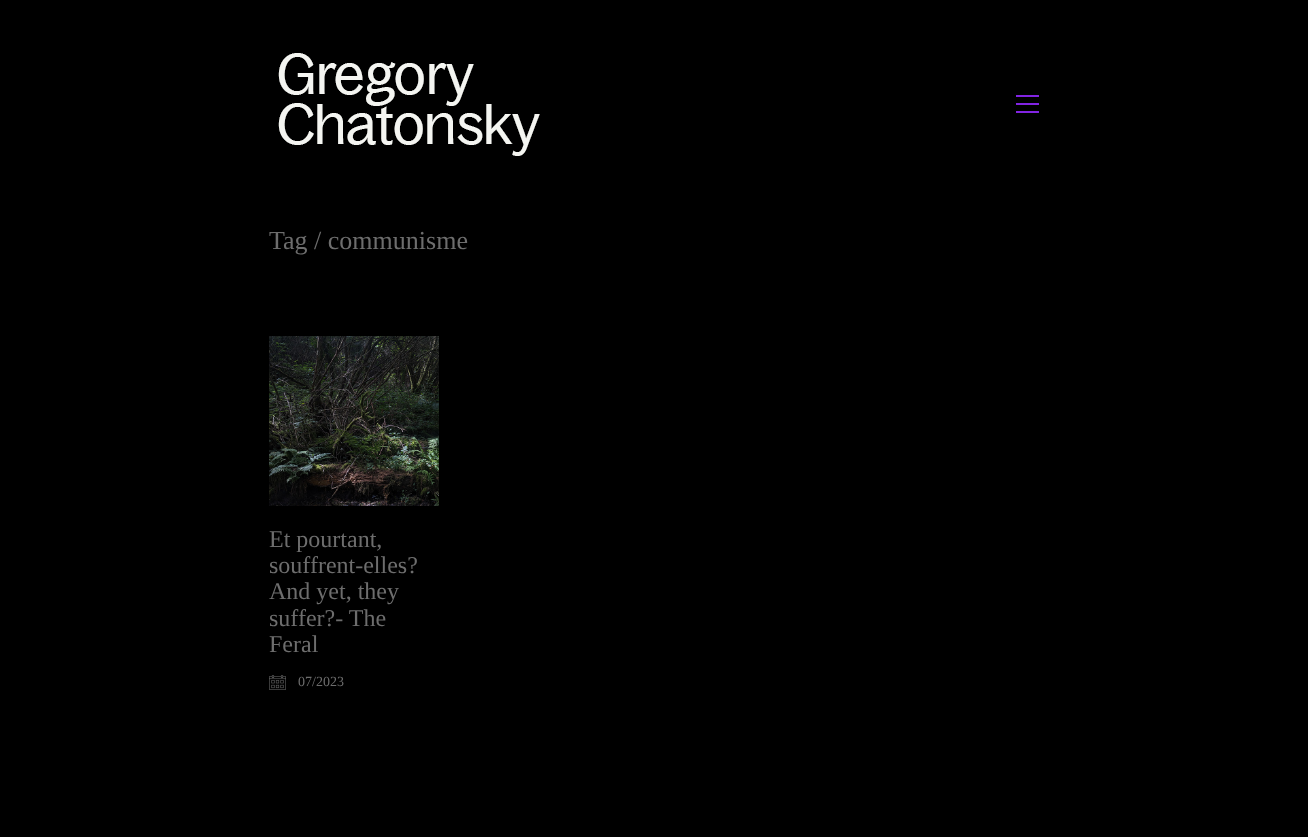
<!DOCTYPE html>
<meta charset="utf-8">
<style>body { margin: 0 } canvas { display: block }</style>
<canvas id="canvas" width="1308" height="837"></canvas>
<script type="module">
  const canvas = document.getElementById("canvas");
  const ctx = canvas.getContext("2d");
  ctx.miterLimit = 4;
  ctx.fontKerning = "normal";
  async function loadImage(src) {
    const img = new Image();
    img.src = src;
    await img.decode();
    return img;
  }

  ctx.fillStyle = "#000000";
  ctx.fillRect(0, 0, 1308, 837);
  ctx.drawImage(await loadImage("img1.png"), 278, 53, 262, 103);
  ctx.fillStyle = "#8224e3";
  ctx.fillRect(1016, 95, 23, 2);
  ctx.fillRect(1016, 103, 23, 2);
  ctx.fillRect(1016, 111, 23, 2);
  ctx.font = "26px Liberation Serif";
  ctx.fillStyle = "#6d6d6d";
  ctx.fillText("Tag / communisme", 269, 249);
  ctx.drawImage(await loadImage("img2.png"), 269, 336, 170, 170);
  ctx.font = "24px Liberation Serif";
  ctx.fillText("Et pourtant,", 269, 547);
  ctx.fillText("souffrent-elles?", 269, 573);
  ctx.fillText("And yet, they", 269, 599);
  ctx.fillText("suffer?- The", 269, 626);
  ctx.fillText("Feral", 269, 652);
  ctx.drawImage(await loadImage("img3.png"), 269, 675, 17, 15);
  ctx.font = "14px Liberation Serif";
  ctx.fillText("07/2023", 298, 686);
</script>
